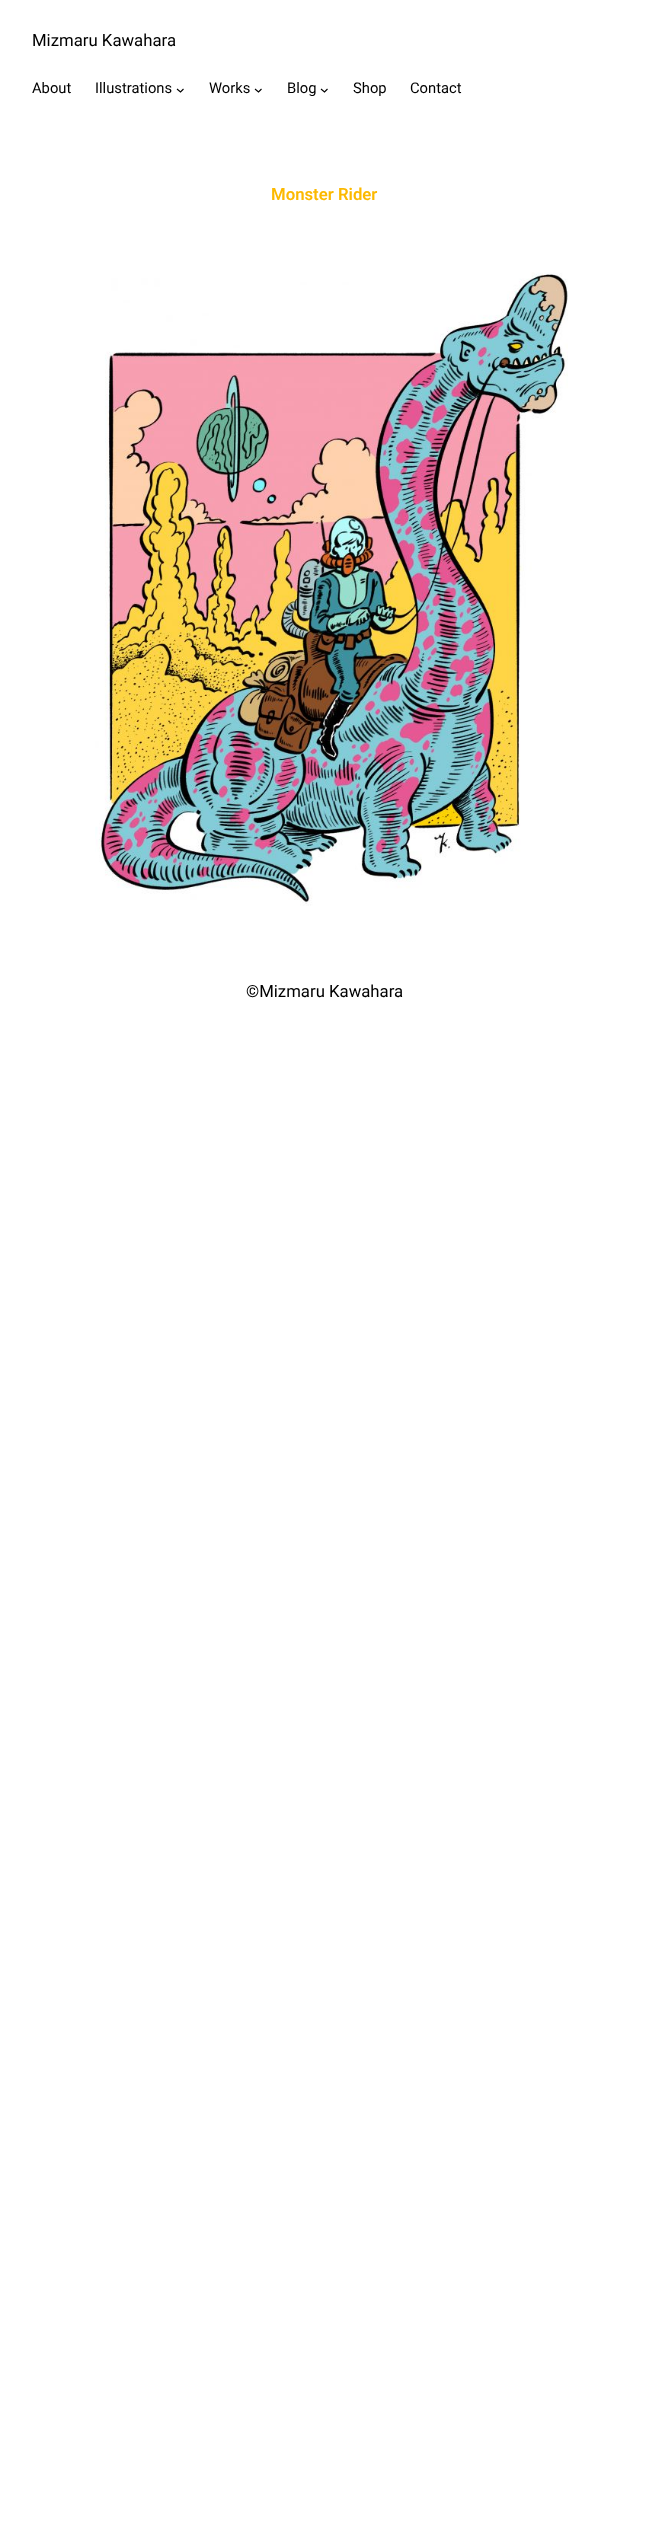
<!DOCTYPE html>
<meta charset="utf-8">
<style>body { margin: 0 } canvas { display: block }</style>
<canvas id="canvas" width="649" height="2526"></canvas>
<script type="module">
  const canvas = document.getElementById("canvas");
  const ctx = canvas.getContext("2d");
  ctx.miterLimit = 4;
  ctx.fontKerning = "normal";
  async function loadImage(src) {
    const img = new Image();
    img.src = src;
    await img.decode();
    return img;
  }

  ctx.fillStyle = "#ffffff";
  ctx.fillRect(0, 0, 649, 2526);
  ctx.font = "16.75px Roboto";
  ctx.fillStyle = "#000000";
  ctx.fillText("Mizmaru Kawahara", 32, 46);
  ctx.font = "14.75px Roboto";
  ctx.fillText("About", 32, 93);
  ctx.fillText("Illustrations", 95, 93);
  ctx.beginPath();
  ctx.moveTo(177, 89);
  ctx.lineTo(180.5, 92);
  ctx.lineTo(183.5, 89);
  ctx.strokeStyle = "#000000";
  ctx.lineWidth = 1.1;
  ctx.stroke();
  ctx.fillText("Works", 209, 93);
  ctx.beginPath();
  ctx.moveTo(255, 89);
  ctx.lineTo(258.5, 92);
  ctx.lineTo(261.5, 89);
  ctx.stroke();
  ctx.fillText("Blog", 287, 93);
  ctx.beginPath();
  ctx.moveTo(321, 89);
  ctx.lineTo(324.5, 92);
  ctx.lineTo(327.5, 89);
  ctx.stroke();
  ctx.fillText("Shop", 353, 93);
  ctx.fillText("Contact", 410, 93);
  ctx.font = "600 16.75px Roboto";
  ctx.fillStyle = "#fcb900";
  ctx.fillText("Monster Rider", 271, 200);
  ctx.drawImage(await loadImage("img1.png"), 95, 272, 473, 634);
  ctx.font = "16.75px Roboto";
  ctx.fillStyle = "#000000";
  ctx.fillText("©︎Mizmaru Kawahara", 246, 997);
</script>
